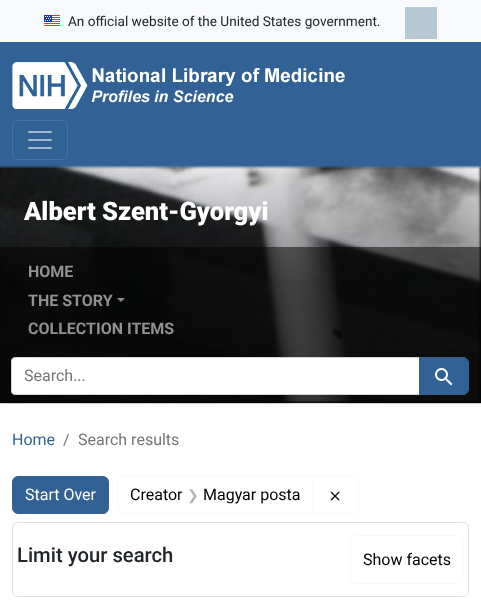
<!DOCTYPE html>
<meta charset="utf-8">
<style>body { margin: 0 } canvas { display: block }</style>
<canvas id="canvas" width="481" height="604"></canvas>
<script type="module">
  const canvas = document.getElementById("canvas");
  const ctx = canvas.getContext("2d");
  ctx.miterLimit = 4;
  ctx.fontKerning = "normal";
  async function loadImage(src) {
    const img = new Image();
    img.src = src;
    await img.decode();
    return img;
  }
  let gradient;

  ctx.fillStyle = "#ffffff";
  ctx.fillRect(0, 0, 481, 604);
  ctx.fillStyle = "#f8f9fa";
  ctx.fillRect(0, 0, 481, 42);
  ctx.drawImage(await loadImage("img1.png"), 44, 15, 16, 11);
  ctx.font = "13.6px Roboto";
  ctx.fillStyle = "#212529";
  ctx.fillText("An official website of the United States government.", 68, 26);
  ctx.fillStyle = "#b6c9d4";
  ctx.fillRect(405, 7, 32, 32);
  ctx.fillStyle = "#326295";
  ctx.fillRect(0, 42, 481, 126);
  ctx.drawImage(await loadImage("img2.png"), 12, 62, 333, 47);
  ctx.beginPath();
  ctx.roundRect(12.5, 120.5, 55, 39, 5.5);
  ctx.strokeStyle = "#4772a0";
  ctx.stroke();
  ctx.drawImage(await loadImage("img3.png"), 28, 131, 24, 18);
  ctx.fillStyle = "#000000";
  ctx.fillRect(0, 168, 481, 235);
  ctx.fillStyle = "#dee2e6";
  ctx.fillRect(0, 403, 481, 1);
  ctx.drawImage(await loadImage("img4.png"), 0, 165, 481, 239);
  ctx.fillStyle = "#000000";
  ctx.filter = "blur(1px)";
  ctx.beginPath();
  ctx.rect(480, 167, 1, 235);
  ctx.fill();
  ctx.filter = "none";
  gradient = ctx.createLinearGradient(240, 168, 241, 403);
  gradient.addColorStop(0, "rgba(0, 0, 0, 0)");
  gradient.addColorStop(0.5, "rgba(0, 0, 0, 0.4)");
  gradient.addColorStop(1, "rgba(0, 0, 0, 0.5)");
  ctx.fillStyle = gradient;
  ctx.fillRect(0, 173, 481, 230);
  ctx.font = "900 25.5px Roboto";
  ctx.fillStyle = "#ffffff";
  ctx.fillText("Albert Szent-Gyorgyi", 24, 220);
  ctx.fillStyle = "rgba(0, 0, 0, 0.5)";
  ctx.fillRect(0, 247, 481, 156);
  ctx.font = "bold 16px Roboto";
  ctx.fillStyle = "#919191";
  ctx.fillText("HOME", 28, 277);
  ctx.fillText("THE STORY", 28, 306);
  ctx.fillStyle = "#8f8f90";
  ctx.beginPath();
  ctx.moveTo(117, 298);
  ctx.lineTo(125, 298);
  ctx.lineTo(121, 302);
  ctx.closePath();
  ctx.fill();
  ctx.fillStyle = "#919191";
  ctx.fillText("COLLECTION ITEMS", 28, 334);
  ctx.fillStyle = "#ffffff";
  ctx.beginPath();
  ctx.roundRect(11.5, 357.5, 408, 37, [3.5, 0, 0, 3.5]);
  ctx.fill();
  ctx.strokeStyle = "#ced4da";
  ctx.stroke();
  ctx.font = "16px Roboto";
  ctx.fillStyle = "#757575";
  ctx.fillText("Search...", 24, 381);
  ctx.fillStyle = "#326295";
  ctx.beginPath();
  ctx.roundRect(419.5, 357.5, 49, 37, [0, 5.5, 5.5, 0]);
  ctx.fill();
  ctx.strokeStyle = "#326295";
  ctx.stroke();
  ctx.drawImage(await loadImage("img5.png"), 435, 368, 18, 18);
  ctx.fillText("Home", 12, 445);
  ctx.fillStyle = "#757575";
  ctx.fillText("/", 63, 445);
  ctx.fillText("Search results", 78, 445);
  ctx.fillStyle = "#326295";
  ctx.beginPath();
  ctx.roundRect(12.5, 476.5, 96, 37, 5.5);
  ctx.fill();
  ctx.stroke();
  ctx.fillStyle = "#ffffff";
  ctx.fillText("Start Over", 25, 500);
  ctx.beginPath();
  ctx.roundRect(117.5, 476.5, 195, 37, [5.5, 0, 0, 5.5]);
  ctx.strokeStyle = "#f8f9fa";
  ctx.stroke();
  ctx.fillStyle = "#000000";
  ctx.fillText("Creator", 130, 500);
  ctx.font = "14px DejaVu Sans";
  ctx.fillStyle = "#adb5bd";
  ctx.fillText("❯", 187, 500);
  ctx.font = "16px Roboto";
  ctx.fillStyle = "#000000";
  ctx.fillText("Magyar posta", 203, 500);
  ctx.beginPath();
  ctx.roundRect(312.5, 476.5, 46, 37, [0, 5.5, 5.5, 0]);
  ctx.stroke();
  ctx.drawImage(await loadImage("img6.png"), 330, 491, 10, 10);
  ctx.beginPath();
  ctx.roundRect(12.5, 522.5, 456, 74, 5.5);
  ctx.strokeStyle = "#dee2e6";
  ctx.stroke();
  ctx.font = "500 20.25px Roboto";
  ctx.fillStyle = "#212529";
  ctx.fillText("Limit your search", 17, 562);
  ctx.beginPath();
  ctx.roundRect(350.5, 535.5, 113, 48, 5.5);
  ctx.strokeStyle = "#f8f9fa";
  ctx.stroke();
  ctx.font = "16px Roboto";
  ctx.fillStyle = "#000000";
  ctx.fillText("Show facets", 363, 565);
</script>
